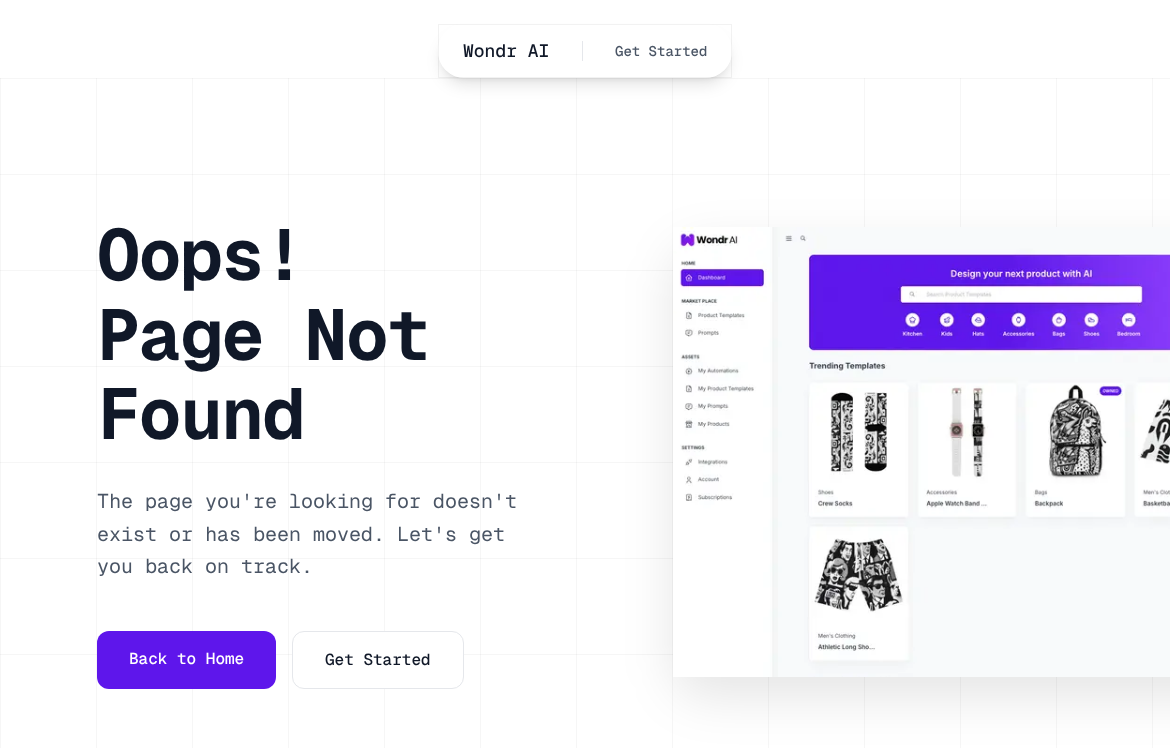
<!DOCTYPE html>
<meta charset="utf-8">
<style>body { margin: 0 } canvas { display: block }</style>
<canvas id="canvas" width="1170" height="748"></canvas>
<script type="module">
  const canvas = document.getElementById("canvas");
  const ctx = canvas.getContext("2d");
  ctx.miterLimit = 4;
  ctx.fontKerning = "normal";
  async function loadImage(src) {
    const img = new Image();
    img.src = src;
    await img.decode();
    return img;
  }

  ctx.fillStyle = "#ffffff";
  ctx.fillRect(0, 0, 1170, 748);
  ctx.save();
  ctx.beginPath();
  ctx.moveTo(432, 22);
  ctx.lineTo(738, 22);
  ctx.lineTo(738, 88);
  ctx.lineTo(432, 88);
  ctx.closePath();
  ctx.moveTo(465, 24);
  ctx.lineTo(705, 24);
  ctx.bezierCurveTo(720, 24, 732, 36, 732, 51);
  ctx.bezierCurveTo(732, 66, 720, 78, 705, 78);
  ctx.lineTo(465, 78);
  ctx.bezierCurveTo(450, 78, 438, 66, 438, 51);
  ctx.bezierCurveTo(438, 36, 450, 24, 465, 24);
  ctx.closePath();
  ctx.clip("evenodd");
  ctx.fillStyle = "rgba(0, 0, 0, 0.1)";
  ctx.filter = "blur(3px)";
  ctx.beginPath();
  ctx.roundRect(442, 32, 286, 46, 23);
  ctx.fill();
  ctx.filter = "none";
  ctx.restore();
  ctx.save();
  ctx.beginPath();
  ctx.moveTo(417, 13);
  ctx.lineTo(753, 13);
  ctx.lineTo(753, 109);
  ctx.lineTo(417, 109);
  ctx.closePath();
  ctx.moveTo(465, 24);
  ctx.lineTo(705, 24);
  ctx.bezierCurveTo(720, 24, 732, 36, 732, 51);
  ctx.bezierCurveTo(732, 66, 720, 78, 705, 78);
  ctx.lineTo(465, 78);
  ctx.bezierCurveTo(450, 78, 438, 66, 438, 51);
  ctx.bezierCurveTo(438, 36, 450, 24, 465, 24);
  ctx.closePath();
  ctx.clip("evenodd");
  ctx.fillStyle = "rgba(0, 0, 0, 0.1)";
  ctx.filter = "blur(7.5px)";
  ctx.beginPath();
  ctx.roundRect(441, 37, 288, 48, 24);
  ctx.fill();
  ctx.filter = "none";
  ctx.restore();
  ctx.fillStyle = "rgba(255, 255, 255, 0.9)";
  ctx.beginPath();
  ctx.roundRect(438, 24, 294, 54, 27);
  ctx.fill();
  ctx.strokeStyle = "rgba(0, 0, 0, 0.05)";
  ctx.strokeRect(438.5, 24.5, 293, 53);
  ctx.font = "500 18px Geist Mono";
  ctx.fillStyle = "#101828";
  ctx.fillText("Wondr AI", 463, 57);
  ctx.fillStyle = "#e5e7eb";
  ctx.fillRect(582, 41, 1, 20);
  ctx.font = "500 14px Geist Mono";
  ctx.fillStyle = "#4a5565";
  ctx.fillText("Get Started", 615, 56);
  ctx.fillStyle = "rgba(128, 128, 128, 0.07)";
  ctx.fillRect(0, 78, 1170, 1);
  ctx.fillStyle = "#f6f6f6";
  ctx.fillRect(0, 174, 1170, 1);
  ctx.fillRect(0, 270, 673, 1);
  ctx.fillRect(0, 366, 673, 1);
  ctx.fillRect(0, 462, 673, 1);
  ctx.fillRect(0, 558, 673, 1);
  ctx.fillRect(0, 654, 673, 1);
  ctx.fillStyle = "rgba(128, 128, 128, 0.07)";
  ctx.fillRect(0, 78, 1, 670);
  ctx.fillRect(96, 78, 1, 670);
  ctx.fillRect(192, 78, 1, 670);
  ctx.fillRect(288, 78, 1, 670);
  ctx.fillRect(384, 78, 1, 670);
  ctx.fillRect(480, 78, 1, 670);
  ctx.fillRect(576, 78, 1, 670);
  ctx.fillRect(672, 78, 1, 670);
  ctx.fillRect(768, 78, 1, 670);
  ctx.fillRect(864, 78, 1, 670);
  ctx.fillRect(960, 78, 1, 670);
  ctx.fillRect(1056, 78, 1, 670);
  ctx.fillRect(1152, 78, 1, 670);
  ctx.letterSpacing = "-1.75px";
  ctx.font = "bold 72px Geist Mono";
  ctx.fillStyle = "#101828";
  ctx.fillText("Oops!", 97, 280);
  ctx.fillText("Page Not", 97, 360);
  ctx.fillText("Found", 97, 439);
  ctx.letterSpacing = "0px";
  ctx.font = "20px Geist Mono";
  ctx.fillStyle = "#4a5565";
  ctx.fillText("The page you're looking for doesn't", 97, 508);
  ctx.fillText("exist or has been moved. Let's get", 97, 541);
  ctx.fillText("you back on track.", 97, 573);
  ctx.fillStyle = "#5e16eb";
  ctx.beginPath();
  ctx.roundRect(97, 631, 179, 58, 12);
  ctx.fill();
  ctx.font = "500 16px Geist Mono";
  ctx.fillStyle = "#ffffff";
  ctx.fillText("Back to Home", 129, 664);
  ctx.beginPath();
  ctx.roundRect(292.5, 631.5, 171, 57, 11.5);
  ctx.fill();
  ctx.strokeStyle = "#e5e7eb";
  ctx.stroke();
  ctx.fillStyle = "#101828";
  ctx.fillText("Get Started", 325, 665);
  ctx.fillStyle = "rgba(0, 0, 0, 0.1)";
  ctx.filter = "blur(25px)";
  ctx.beginPath();
  ctx.roundRect(673, 247, 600, 450, 32);
  ctx.fill();
  ctx.filter = "none";
  ctx.drawImage(await loadImage("img1.png"), 673, 227, 497, 450);
</script>
